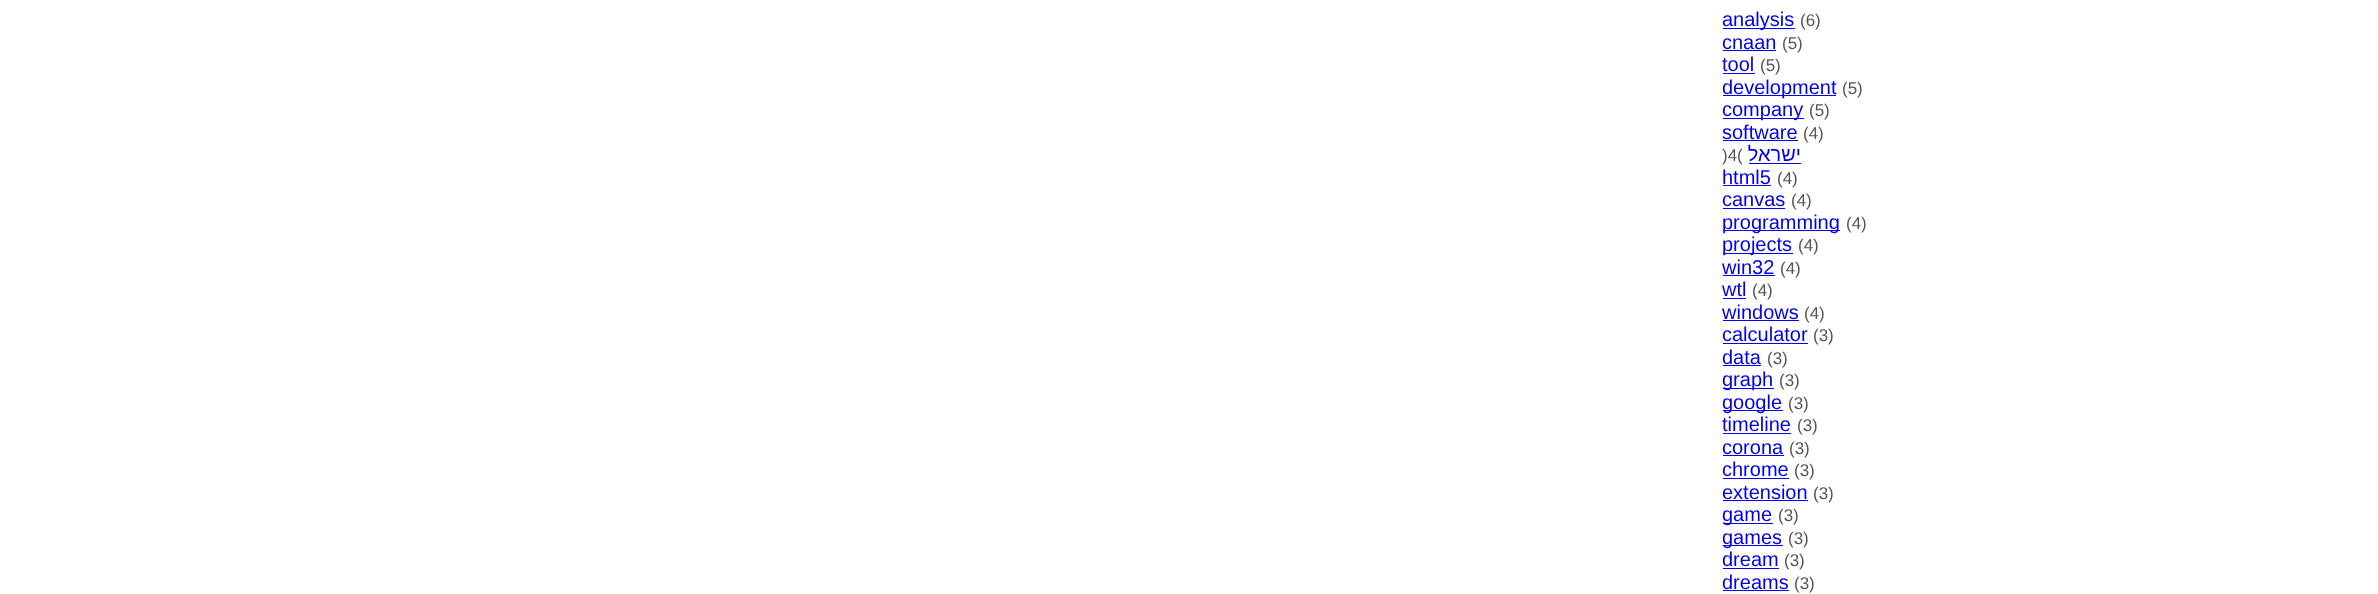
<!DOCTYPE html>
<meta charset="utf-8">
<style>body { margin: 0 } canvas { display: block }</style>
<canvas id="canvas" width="2378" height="594"></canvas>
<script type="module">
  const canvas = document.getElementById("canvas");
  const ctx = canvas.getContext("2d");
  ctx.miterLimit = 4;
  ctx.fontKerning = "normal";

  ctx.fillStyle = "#ffffff";
  ctx.fillRect(0, 0, 2378, 594);
  ctx.fillStyle = "#0000ee";
  ctx.fillRect(1723, 28, 72, 1);
  ctx.font = "20px Liberation Sans";
  ctx.fillText("analysis", 1722, 26);
  ctx.font = "17px Liberation Sans";
  ctx.fillStyle = "#555555";
  ctx.fillText("(6)", 1800, 26);
  ctx.font = "20px Liberation Sans";
  ctx.fillStyle = "#0000ee";
  ctx.fillText("cnaan", 1722, 49);
  ctx.fillRect(1723, 50, 53, 1);
  ctx.font = "17px Liberation Sans";
  ctx.fillStyle = "#555555";
  ctx.fillText("(5)", 1782, 49);
  ctx.font = "20px Liberation Sans";
  ctx.fillStyle = "#0000ee";
  ctx.fillText("tool", 1722, 71);
  ctx.fillRect(1723, 73, 32, 1);
  ctx.font = "17px Liberation Sans";
  ctx.fillStyle = "#555555";
  ctx.fillText("(5)", 1760, 71);
  ctx.fillStyle = "#0000ee";
  ctx.fillRect(1723, 95, 113, 1);
  ctx.font = "20px Liberation Sans";
  ctx.fillText("development", 1722, 94);
  ctx.font = "17px Liberation Sans";
  ctx.fillStyle = "#555555";
  ctx.fillText("(5)", 1842, 94);
  ctx.fillStyle = "#0000ee";
  ctx.fillRect(1723, 118, 81, 1);
  ctx.font = "20px Liberation Sans";
  ctx.fillText("company", 1722, 116);
  ctx.font = "17px Liberation Sans";
  ctx.fillStyle = "#555555";
  ctx.fillText("(5)", 1809, 116);
  ctx.font = "20px Liberation Sans";
  ctx.fillStyle = "#0000ee";
  ctx.fillText("software", 1722, 139);
  ctx.fillRect(1723, 140, 75, 1);
  ctx.font = "17px Liberation Sans";
  ctx.fillStyle = "#555555";
  ctx.fillText("(4)", 1803, 139);
  ctx.fillText(")4(", 1722, 161);
  ctx.direction = "rtl";
  ctx.font = "20px Liberation Sans";
  ctx.fillStyle = "#0000ee";
  ctx.fillText("ישראל", 1801, 161);
  ctx.fillRect(1749, 163, 52, 1);
  ctx.direction = "ltr";
  ctx.fillText("html5", 1722, 184);
  ctx.fillRect(1723, 185, 48, 1);
  ctx.font = "17px Liberation Sans";
  ctx.fillStyle = "#555555";
  ctx.fillText("(4)", 1777, 184);
  ctx.font = "20px Liberation Sans";
  ctx.fillStyle = "#0000ee";
  ctx.fillText("canvas", 1722, 206);
  ctx.fillRect(1723, 208, 62, 1);
  ctx.font = "17px Liberation Sans";
  ctx.fillStyle = "#555555";
  ctx.fillText("(4)", 1791, 206);
  ctx.fillStyle = "#0000ee";
  ctx.fillRect(1723, 230, 117, 1);
  ctx.font = "20px Liberation Sans";
  ctx.fillText("programming", 1722, 229);
  ctx.font = "17px Liberation Sans";
  ctx.fillStyle = "#555555";
  ctx.fillText("(4)", 1846, 229);
  ctx.fillStyle = "#0000ee";
  ctx.fillRect(1723, 253, 70, 1);
  ctx.font = "20px Liberation Sans";
  ctx.fillText("projects", 1722, 251);
  ctx.font = "17px Liberation Sans";
  ctx.fillStyle = "#555555";
  ctx.fillText("(4)", 1798, 251);
  ctx.font = "20px Liberation Sans";
  ctx.fillStyle = "#0000ee";
  ctx.fillText("win32", 1722, 274);
  ctx.fillRect(1723, 275, 52, 1);
  ctx.font = "17px Liberation Sans";
  ctx.fillStyle = "#555555";
  ctx.fillText("(4)", 1780, 274);
  ctx.font = "20px Liberation Sans";
  ctx.fillStyle = "#0000ee";
  ctx.fillText("wtl", 1722, 296);
  ctx.fillRect(1723, 298, 23, 1);
  ctx.font = "17px Liberation Sans";
  ctx.fillStyle = "#555555";
  ctx.fillText("(4)", 1752, 296);
  ctx.font = "20px Liberation Sans";
  ctx.fillStyle = "#0000ee";
  ctx.fillText("windows", 1722, 319);
  ctx.fillRect(1723, 320, 76, 1);
  ctx.font = "17px Liberation Sans";
  ctx.fillStyle = "#555555";
  ctx.fillText("(4)", 1804, 319);
  ctx.font = "20px Liberation Sans";
  ctx.fillStyle = "#0000ee";
  ctx.fillText("calculator", 1722, 341);
  ctx.fillRect(1723, 343, 85, 1);
  ctx.font = "17px Liberation Sans";
  ctx.fillStyle = "#555555";
  ctx.fillText("(3)", 1813, 341);
  ctx.font = "20px Liberation Sans";
  ctx.fillStyle = "#0000ee";
  ctx.fillText("data", 1722, 364);
  ctx.fillRect(1723, 365, 38, 1);
  ctx.font = "17px Liberation Sans";
  ctx.fillStyle = "#555555";
  ctx.fillText("(3)", 1767, 364);
  ctx.fillStyle = "#0000ee";
  ctx.fillRect(1723, 388, 51, 1);
  ctx.font = "20px Liberation Sans";
  ctx.fillText("graph", 1722, 386);
  ctx.font = "17px Liberation Sans";
  ctx.fillStyle = "#555555";
  ctx.fillText("(3)", 1779, 386);
  ctx.fillStyle = "#0000ee";
  ctx.fillRect(1723, 410, 60, 1);
  ctx.font = "20px Liberation Sans";
  ctx.fillText("google", 1722, 409);
  ctx.font = "17px Liberation Sans";
  ctx.fillStyle = "#555555";
  ctx.fillText("(3)", 1788, 409);
  ctx.font = "20px Liberation Sans";
  ctx.fillStyle = "#0000ee";
  ctx.fillText("timeline", 1722, 431);
  ctx.fillRect(1723, 433, 68, 1);
  ctx.font = "17px Liberation Sans";
  ctx.fillStyle = "#555555";
  ctx.fillText("(3)", 1797, 431);
  ctx.font = "20px Liberation Sans";
  ctx.fillStyle = "#0000ee";
  ctx.fillText("corona", 1722, 454);
  ctx.fillRect(1723, 455, 61, 1);
  ctx.font = "17px Liberation Sans";
  ctx.fillStyle = "#555555";
  ctx.fillText("(3)", 1789, 454);
  ctx.font = "20px Liberation Sans";
  ctx.fillStyle = "#0000ee";
  ctx.fillText("chrome", 1722, 476);
  ctx.fillRect(1723, 478, 66, 1);
  ctx.font = "17px Liberation Sans";
  ctx.fillStyle = "#555555";
  ctx.fillText("(3)", 1794, 476);
  ctx.font = "20px Liberation Sans";
  ctx.fillStyle = "#0000ee";
  ctx.fillText("extension", 1722, 499);
  ctx.fillRect(1723, 500, 85, 1);
  ctx.font = "17px Liberation Sans";
  ctx.fillStyle = "#555555";
  ctx.fillText("(3)", 1813, 499);
  ctx.fillStyle = "#0000ee";
  ctx.fillRect(1723, 523, 50, 1);
  ctx.font = "20px Liberation Sans";
  ctx.fillText("game", 1722, 521);
  ctx.font = "17px Liberation Sans";
  ctx.fillStyle = "#555555";
  ctx.fillText("(3)", 1778, 521);
  ctx.fillStyle = "#0000ee";
  ctx.fillRect(1723, 545, 60, 1);
  ctx.font = "20px Liberation Sans";
  ctx.fillText("games", 1722, 544);
  ctx.font = "17px Liberation Sans";
  ctx.fillStyle = "#555555";
  ctx.fillText("(3)", 1788, 544);
  ctx.font = "20px Liberation Sans";
  ctx.fillStyle = "#0000ee";
  ctx.fillText("dream", 1722, 566);
  ctx.fillRect(1723, 568, 56, 1);
  ctx.font = "17px Liberation Sans";
  ctx.fillStyle = "#555555";
  ctx.fillText("(3)", 1784, 566);
  ctx.font = "20px Liberation Sans";
  ctx.fillStyle = "#0000ee";
  ctx.fillText("dreams", 1722, 589);
  ctx.fillRect(1723, 590, 66, 1);
  ctx.font = "17px Liberation Sans";
  ctx.fillStyle = "#555555";
  ctx.fillText("(3)", 1794, 589);
</script>
